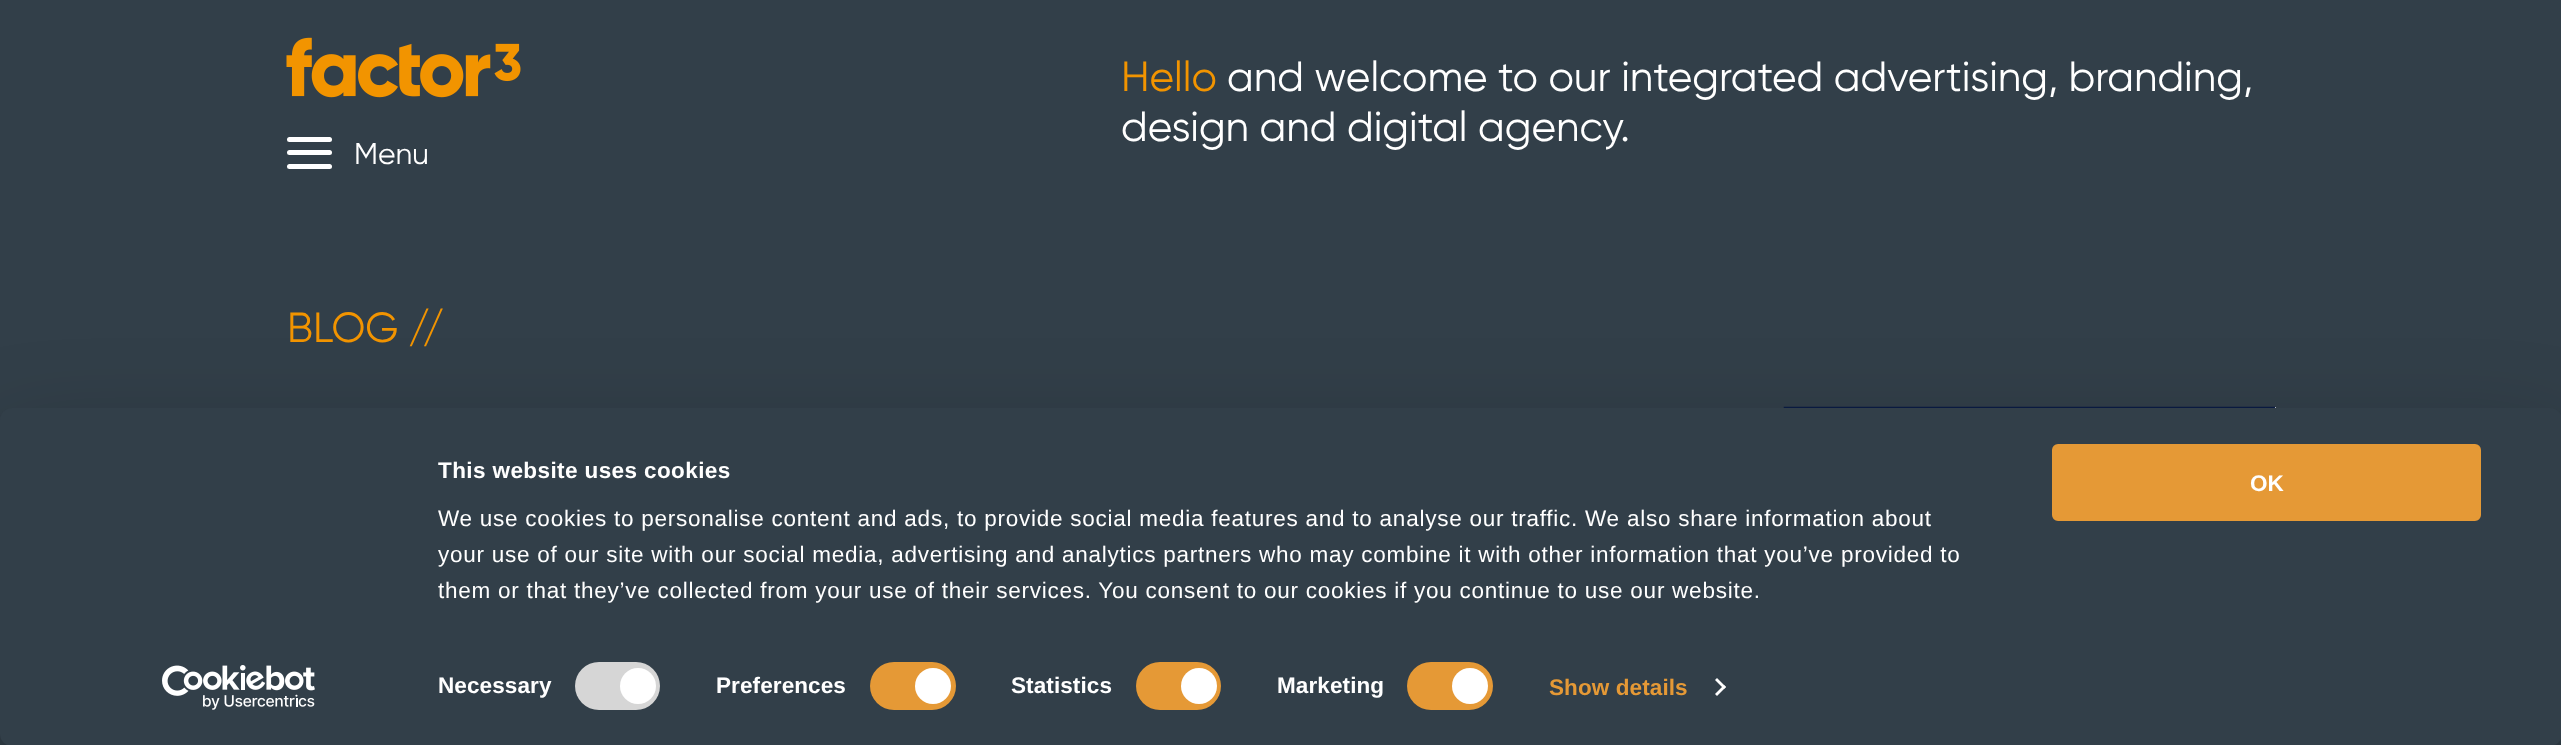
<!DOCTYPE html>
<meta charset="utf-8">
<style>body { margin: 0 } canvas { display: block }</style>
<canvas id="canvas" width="2561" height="745"></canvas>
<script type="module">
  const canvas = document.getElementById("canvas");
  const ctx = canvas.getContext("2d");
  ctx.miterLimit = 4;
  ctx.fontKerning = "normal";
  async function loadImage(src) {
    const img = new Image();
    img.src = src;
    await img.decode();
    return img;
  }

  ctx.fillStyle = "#323f49";
  ctx.fillRect(0, 0, 2561, 745);
  ctx.font = "42px Gilroy";
  ctx.fillStyle = "#f29400";
  ctx.fillText("Hello", 1121, 91);
  ctx.fillStyle = "#ffffff";
  ctx.fillText("and welcome to our integrated advertising, branding,", 1227, 91);
  ctx.fillText("design and digital agency.", 1121, 141);
  ctx.drawImage(await loadImage("img1.png"), 286, 37, 235, 61);
  ctx.beginPath();
  ctx.roundRect(287, 150, 45, 5, 2.5);
  ctx.fill();
  ctx.beginPath();
  ctx.roundRect(287, 137, 45, 5, 2.5);
  ctx.fill();
  ctx.beginPath();
  ctx.roundRect(287, 164, 45, 5, 2.5);
  ctx.fill();
  ctx.font = "30px Gilroy";
  ctx.fillText("Menu", 354, 164);
  ctx.font = "42px Gilroy";
  ctx.fillStyle = "#f29400";
  ctx.fillText("BLOG", 287, 342);
  ctx.letterSpacing = "-8px";
  ctx.fillText("//", 408, 342);
  ctx.fillStyle = "#ffffff";
  ctx.fillRect(2275, 407, 1, 1);
  ctx.drawImage(await loadImage("img2.png"), 1783, 406, 493, 2);
  ctx.fillStyle = "rgba(0, 0, 0, 0.3)";
  ctx.filter = "blur(52.5px)";
  ctx.beginPath();
  ctx.roundRect(0, 453, 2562, 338, 12);
  ctx.fill();
  ctx.filter = "none";
  ctx.fillStyle = "#323f49";
  ctx.beginPath();
  ctx.roundRect(0, 408, 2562, 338, 12);
  ctx.fill();
  ctx.letterSpacing = "0.4px";
  ctx.font = "bold 22.5px Liberation Sans";
  ctx.fillStyle = "#ffffff";
  ctx.fillText("This website uses cookies", 438, 478);
  ctx.letterSpacing = "0.75px";
  ctx.font = "22.5px Liberation Sans";
  ctx.fillText("We use cookies to personalise content and ads, to provide social media features and to analyse our traffic. We also share information about", 438, 526);
  ctx.fillText("your use of our site with our social media, advertising and analytics partners who may combine it with other information that you’ve provided to", 438, 562);
  ctx.fillText("them or that they’ve collected from your use of their services. You consent to our cookies if you continue to use our website.", 438, 598);
  ctx.letterSpacing = "0.1px";
  ctx.font = "bold 22.5px Liberation Sans";
  ctx.fillText("Necessary", 438, 693);
  ctx.fillStyle = "#d6d6d6";
  ctx.beginPath();
  ctx.roundRect(575, 662, 85, 48, 24);
  ctx.fill();
  ctx.fillStyle = "#ffffff";
  ctx.beginPath();
  ctx.arc(638, 686, 18, 0, Math.PI * 2);
  ctx.fill();
  ctx.fillText("Preferences", 716, 693);
  ctx.fillStyle = "#e59936";
  ctx.beginPath();
  ctx.roundRect(870, 662, 86, 48, 24);
  ctx.fill();
  ctx.fillStyle = "#ffffff";
  ctx.beginPath();
  ctx.arc(933, 686, 18, 0, Math.PI * 2);
  ctx.fill();
  ctx.fillText("Statistics", 1011, 693);
  ctx.fillStyle = "#e59936";
  ctx.beginPath();
  ctx.roundRect(1136, 662, 85, 48, 24);
  ctx.fill();
  ctx.fillStyle = "#ffffff";
  ctx.beginPath();
  ctx.arc(1199, 686, 18, 0, Math.PI * 2);
  ctx.fill();
  ctx.fillText("Marketing", 1277, 693);
  ctx.fillStyle = "#e59936";
  ctx.beginPath();
  ctx.roundRect(1407, 662, 86, 48, 24);
  ctx.fill();
  ctx.fillStyle = "#ffffff";
  ctx.beginPath();
  ctx.arc(1470, 686, 18, 0, Math.PI * 2);
  ctx.fill();
  ctx.fillStyle = "#e59936";
  ctx.fillText("Show details", 1549, 695);
  ctx.fillStyle = "#ffffff";
  ctx.beginPath();
  ctx.moveTo(1717, 678);
  ctx.lineTo(1726, 687);
  ctx.lineTo(1724, 689);
  ctx.lineTo(1715, 680);
  ctx.closePath();
  ctx.fill();
  ctx.beginPath();
  ctx.moveTo(1724, 685);
  ctx.lineTo(1726, 687);
  ctx.lineTo(1717, 696);
  ctx.lineTo(1715, 694);
  ctx.closePath();
  ctx.fill();
  ctx.fillStyle = "#e59936";
  ctx.beginPath();
  ctx.roundRect(2053.5, 445.5, 426, 74, 4.5);
  ctx.fill();
  ctx.strokeStyle = "#e59936";
  ctx.lineWidth = 3;
  ctx.stroke();
  ctx.letterSpacing = "0px";
  ctx.fillStyle = "#ffffff";
  ctx.fillText("OK", 2250, 491);
  ctx.drawImage(await loadImage("img3.png"), 162, 665, 153, 45);
</script>
